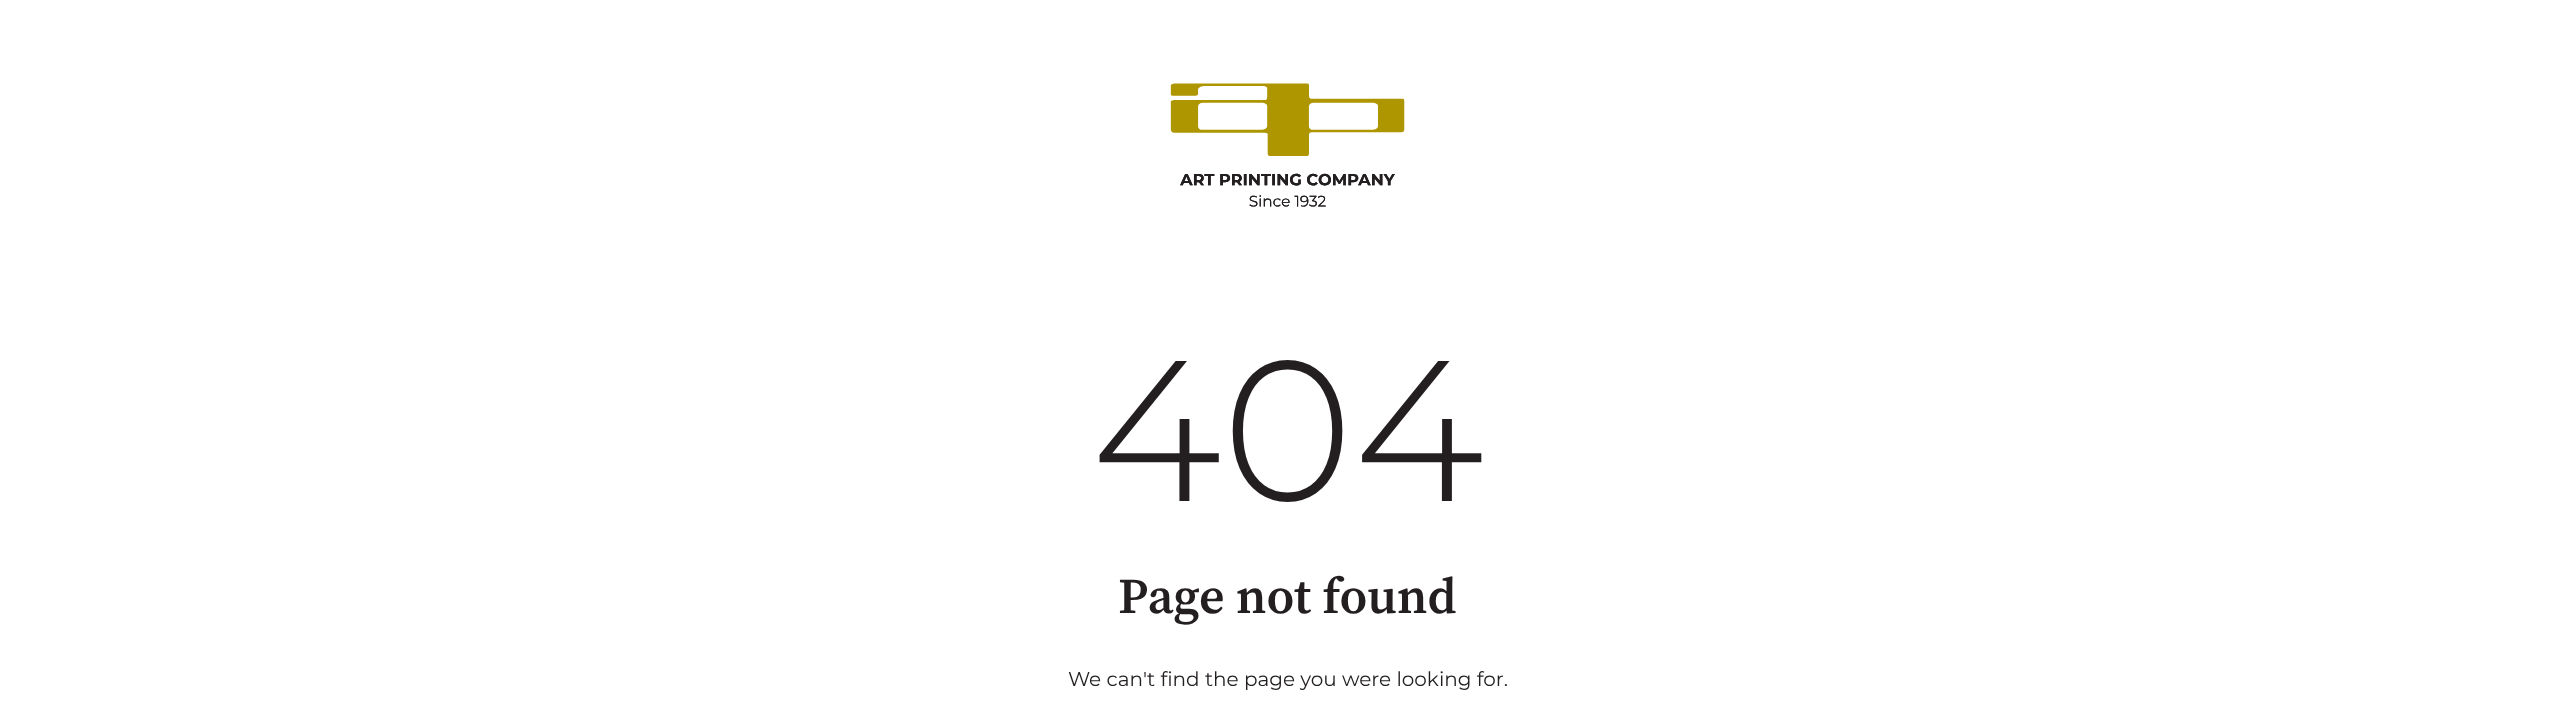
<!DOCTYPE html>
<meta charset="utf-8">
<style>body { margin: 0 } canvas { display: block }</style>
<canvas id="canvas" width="2575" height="718"></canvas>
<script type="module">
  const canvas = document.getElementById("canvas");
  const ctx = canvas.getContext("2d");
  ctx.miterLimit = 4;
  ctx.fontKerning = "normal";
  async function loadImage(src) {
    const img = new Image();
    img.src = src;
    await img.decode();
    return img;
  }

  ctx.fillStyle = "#ffffff";
  ctx.fillRect(0, 0, 2575, 718);
  ctx.drawImage(await loadImage("img1.png"), 1170, 83, 235, 124);
  ctx.font = "300 200px Montserrat";
  ctx.fillStyle = "#231f20";
  ctx.fillText("404", 1091, 501);
  ctx.font = "600 50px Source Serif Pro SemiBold";
  ctx.fillText("Page not found", 1118, 613);
  ctx.font = "20px Montserrat";
  ctx.fillText("We can't find the page you were looking for.", 1068, 686);
</script>
